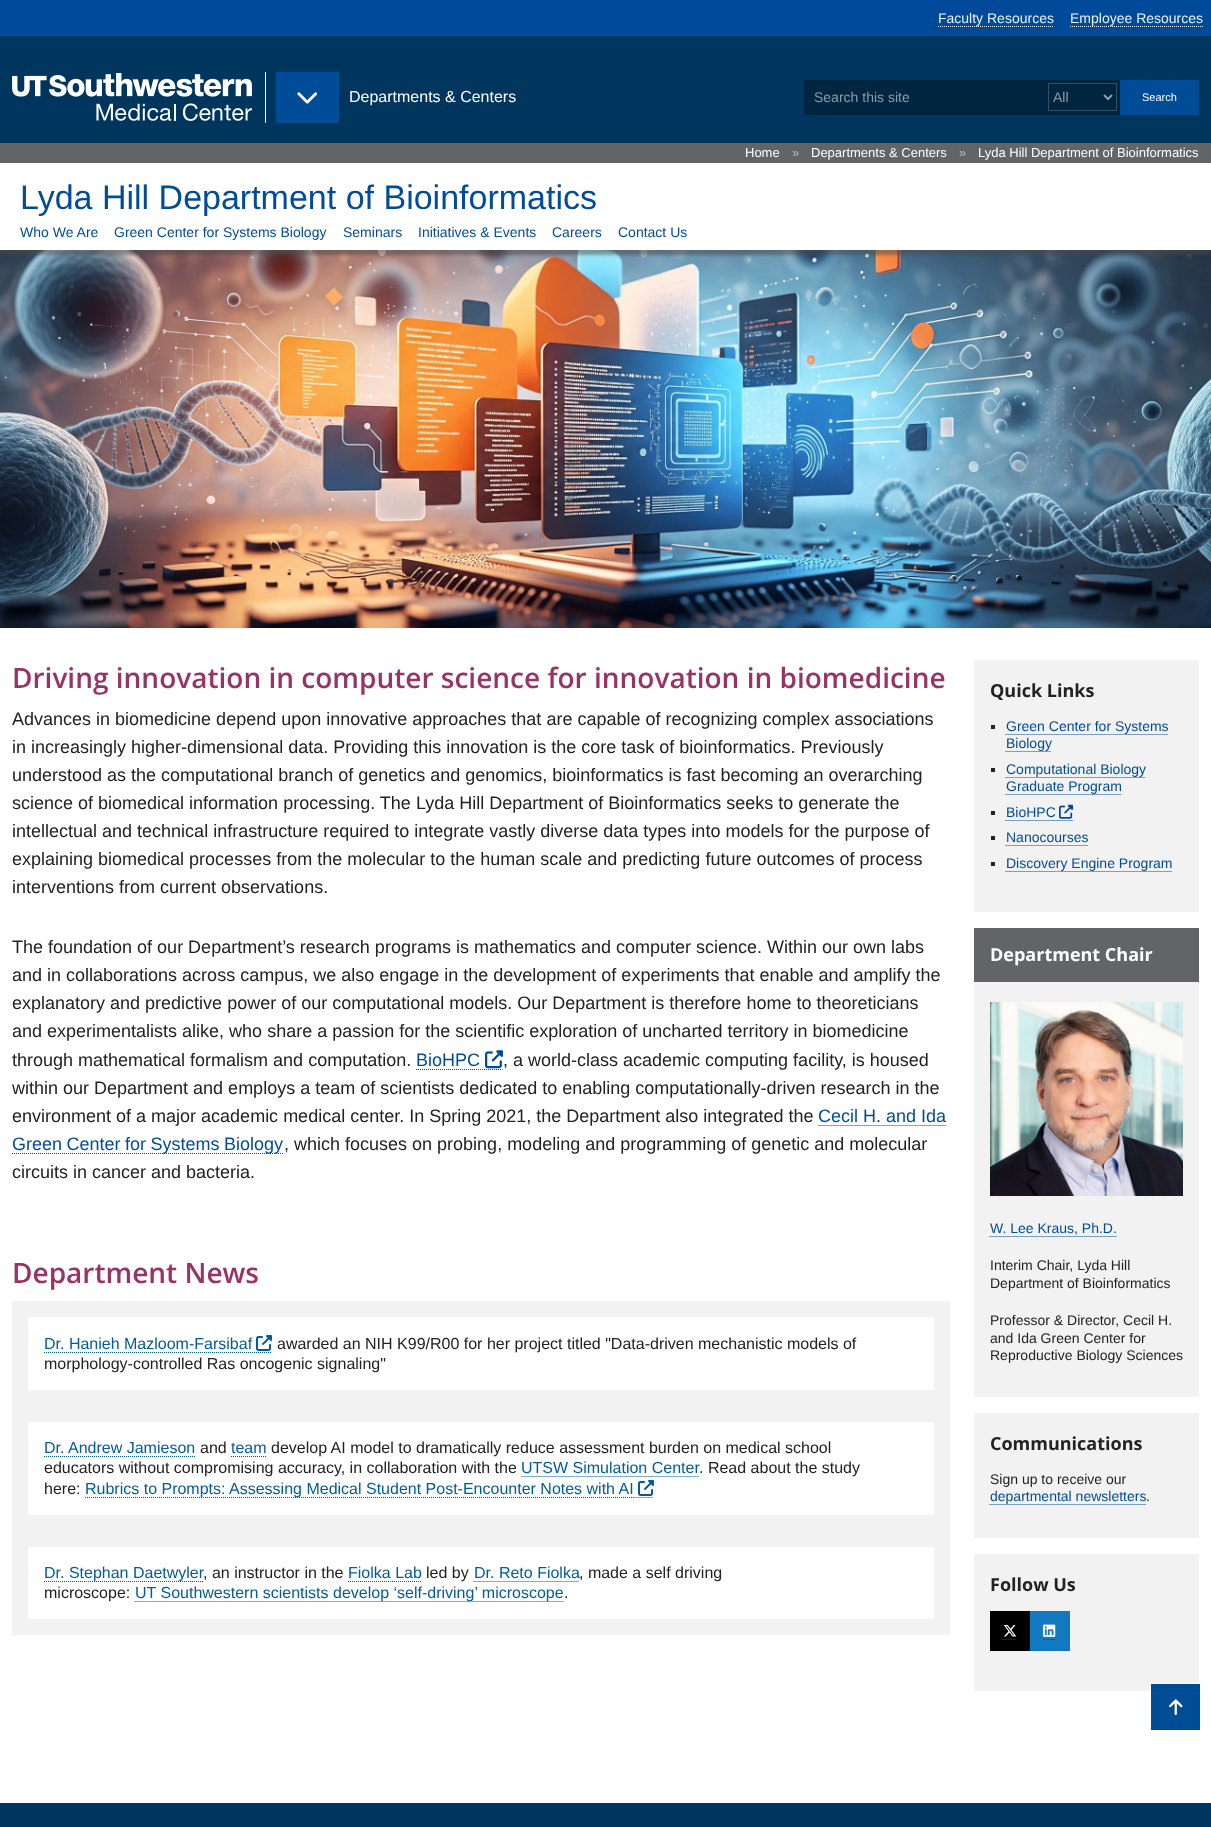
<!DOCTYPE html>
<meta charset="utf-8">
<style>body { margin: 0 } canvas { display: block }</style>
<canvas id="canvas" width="1211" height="1827"></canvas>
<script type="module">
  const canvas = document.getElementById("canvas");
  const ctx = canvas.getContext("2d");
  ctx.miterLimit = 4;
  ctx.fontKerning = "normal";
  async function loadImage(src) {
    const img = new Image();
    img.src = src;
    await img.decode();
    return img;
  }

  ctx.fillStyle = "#ffffff";
  ctx.fillRect(0, 0, 1211, 1827);
  ctx.fillStyle = "#00355d";
  ctx.fillRect(0, 36, 1211, 107);
  ctx.fillStyle = "#004a99";
  ctx.fillRect(0, 0, 1211, 36);
  ctx.font = "14px Liberation Sans";
  ctx.fillStyle = "#ebf0f3";
  ctx.fillText("Faculty Resources", 938, 23);
  ctx.beginPath();
  ctx.moveTo(938, 26.5);
  ctx.lineTo(1054, 26.5);
  ctx.strokeStyle = "#ebf0f3";
  ctx.setLineDash([1, 1]);
  ctx.stroke();
  ctx.fillText("Employee Resources", 1070, 23);
  ctx.beginPath();
  ctx.moveTo(1070, 26.5);
  ctx.lineTo(1203, 26.5);
  ctx.stroke();
  ctx.drawImage(await loadImage("img1.png"), 12, 73, 240, 48);
  ctx.fillStyle = "#ffffff";
  ctx.fillRect(265, 72, 1, 51);
  ctx.fillStyle = "#004c97";
  ctx.fillRect(276, 72, 63, 51);
  ctx.drawImage(await loadImage("img2.png"), 297, 92, 21, 12);
  ctx.font = "16px Liberation Sans";
  ctx.fillStyle = "#ffffff";
  ctx.fillText("Departments & Centers", 349, 102);
  ctx.fillStyle = "#002541";
  ctx.fillRect(804, 80, 316, 35);
  ctx.font = "14px Liberation Sans";
  ctx.fillStyle = "#8c9daa";
  ctx.fillText("Search this site", 814, 102);
  ctx.strokeStyle = "#335167";
  ctx.setLineDash([]);
  ctx.strokeRect(1048.5, 83.5, 68, 27);
  ctx.beginPath();
  ctx.moveTo(1104, 95);
  ctx.lineTo(1108, 99);
  ctx.lineTo(1112, 95);
  ctx.strokeStyle = "#8c9daa";
  ctx.lineWidth = 2;
  ctx.stroke();
  ctx.fillText("All", 1053, 102);
  ctx.fillStyle = "#004c97";
  ctx.fillRect(1120, 80, 79, 35);
  ctx.font = "11px Liberation Sans";
  ctx.fillStyle = "#ffffff";
  ctx.fillText("Search", 1142, 101);
  ctx.fillStyle = "#636466";
  ctx.fillRect(0, 143, 1211, 20);
  ctx.font = "13px Liberation Sans";
  ctx.fillStyle = "#ffffff";
  ctx.fillText("Home", 745, 157);
  ctx.fillStyle = "#c1c1c2";
  ctx.fillText("»", 792, 157);
  ctx.fillStyle = "#ffffff";
  ctx.fillText("Departments & Centers", 811, 157);
  ctx.fillStyle = "#c1c1c2";
  ctx.fillText("»", 959, 157);
  ctx.fillStyle = "#ffffff";
  ctx.fillText("Lyda Hill Department of Bioinformatics", 978, 157);
  ctx.drawImage(await loadImage("img3.png"), 0, 250, 1211, 378);
  ctx.save();
  ctx.beginPath();
  ctx.rect(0, 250, 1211, 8);
  ctx.clip();
  ctx.fillStyle = "rgba(71, 71, 71, 0.5)";
  ctx.filter = "blur(1.5px)";
  ctx.beginPath();
  ctx.rect(0, 168, 1211, 87);
  ctx.fill();
  ctx.filter = "none";
  ctx.restore();
  ctx.font = "34px Liberation Sans";
  ctx.fillStyle = "#004c97";
  ctx.fillText("Lyda Hill Department of Bioinformatics", 20, 209);
  ctx.font = "14px Liberation Sans";
  ctx.fillText("Who We Are", 20, 237);
  ctx.fillText("Green Center for Systems Biology", 114, 237);
  ctx.fillText("Seminars", 343, 237);
  ctx.fillText("Initiatives & Events", 418, 237);
  ctx.fillText("Careers", 552, 237);
  ctx.fillText("Contact Us", 618, 237);
  ctx.font = "600 28px Open Sans";
  ctx.fillStyle = "#993366";
  ctx.fillText("Driving innovation in computer science for innovation in biomedicine", 12, 688);
  ctx.font = "18px Liberation Sans";
  ctx.fillStyle = "#222222";
  ctx.fillText("Advances in biomedicine depend upon innovative approaches that are capable of recognizing complex associations", 12, 725);
  ctx.fillText("in increasingly higher-dimensional data. Providing this innovation is the core task of bioinformatics. Previously", 12, 753);
  ctx.fillText("understood as the computational branch of genetics and genomics, bioinformatics is fast becoming an overarching", 12, 781);
  ctx.fillText("science of biomedical information processing. The Lyda Hill Department of Bioinformatics seeks to generate the", 12, 809);
  ctx.fillText("intellectual and technical infrastructure required to integrate vastly diverse data types into models for the purpose of", 12, 837);
  ctx.fillText("explaining biomedical processes from the molecular to the human scale and predicting future outcomes of process", 12, 865);
  ctx.fillText("interventions from current observations.", 12, 893);
  ctx.fillText("The foundation of our Department’s research programs is mathematics and computer science. Within our own labs", 12, 953);
  ctx.fillText("and in collaborations across campus, we also engage in the development of experiments that enable and amplify the", 12, 981);
  ctx.fillText("explanatory and predictive power of our computational models. Our Department is therefore home to theoreticians", 12, 1009);
  ctx.fillText("and experimentalists alike, who share a passion for the scientific exploration of uncharted territory in biomedicine", 12, 1037);
  ctx.fillText("through mathematical formalism and computation.", 12, 1066);
  ctx.fillStyle = "#004c97";
  ctx.fillText("BioHPC", 416, 1066);
  ctx.beginPath();
  ctx.moveTo(416, 1069.5);
  ctx.lineTo(480, 1069.5);
  ctx.strokeStyle = "#004c97";
  ctx.lineWidth = 1;
  ctx.setLineDash([1, 1]);
  ctx.stroke();
  ctx.beginPath();
  ctx.moveTo(480, 1069.5);
  ctx.lineTo(502.5, 1069.5);
  ctx.stroke();
  ctx.drawImage(await loadImage("img4.png"), 485, 1050, 18, 19);
  ctx.fillStyle = "#222222";
  ctx.fillText(", a world-class academic computing facility, is housed", 503, 1066);
  ctx.fillText("within our Department and employs a team of scientists dedicated to enabling computationally-driven research in the", 12, 1094);
  ctx.fillText("environment of a major academic medical center. In Spring 2021, the Department also integrated the", 12, 1122);
  ctx.fillStyle = "#004c97";
  ctx.fillText("Cecil H. and Ida", 818, 1122);
  ctx.beginPath();
  ctx.moveTo(818.5, 1125.5);
  ctx.lineTo(946.5, 1125.5);
  ctx.stroke();
  ctx.beginPath();
  ctx.moveTo(12, 1153.5);
  ctx.lineTo(284, 1153.5);
  ctx.stroke();
  ctx.wordSpacing = "-0.5px";
  ctx.fillText("Green Center for Systems Biology", 12, 1150);
  ctx.wordSpacing = "0px";
  ctx.fillStyle = "#222222";
  ctx.fillText(", which focuses on probing, modeling and programming of genetic and molecular", 284, 1150);
  ctx.fillText("circuits in cancer and bacteria.", 12, 1178);
  ctx.font = "600 28px Open Sans";
  ctx.fillStyle = "#993366";
  ctx.fillText("Department News", 12, 1283);
  ctx.fillStyle = "#f2f2f2";
  ctx.fillRect(12, 1301, 938, 334);
  ctx.fillStyle = "#ffffff";
  ctx.fillRect(28, 1317, 906, 73);
  ctx.font = "16px Liberation Sans";
  ctx.fillStyle = "#005c9a";
  ctx.fillText("Dr. Hanieh Mazloom-Farsibaf", 44, 1349);
  ctx.beginPath();
  ctx.moveTo(44, 1352.5);
  ctx.lineTo(252, 1352.5);
  ctx.strokeStyle = "#005c9a";
  ctx.stroke();
  ctx.beginPath();
  ctx.moveTo(252, 1352.5);
  ctx.lineTo(272, 1352.5);
  ctx.stroke();
  ctx.drawImage(await loadImage("img5.png"), 256, 1335, 16, 16);
  ctx.fillStyle = "#222222";
  ctx.fillText("awarded an NIH K99/R00 for her project titled \"Data-driven mechanistic models of", 277, 1349);
  ctx.fillText("morphology-controlled Ras oncogenic signaling\"", 44, 1369);
  ctx.fillStyle = "#ffffff";
  ctx.fillRect(28, 1422, 906, 93);
  ctx.fillStyle = "#005c9a";
  ctx.fillText("Dr. Andrew Jamieson", 44, 1453);
  ctx.beginPath();
  ctx.moveTo(44, 1456.5);
  ctx.lineTo(195, 1456.5);
  ctx.stroke();
  ctx.fillStyle = "#222222";
  ctx.fillText("and", 200, 1453);
  ctx.fillStyle = "#005c9a";
  ctx.fillText("team", 231, 1453);
  ctx.beginPath();
  ctx.moveTo(231, 1456.5);
  ctx.lineTo(266.5, 1456.5);
  ctx.stroke();
  ctx.fillStyle = "#222222";
  ctx.fillText("develop AI model to dramatically reduce assessment burden on medical school", 271, 1453);
  ctx.fillText("educators without compromising accuracy, in collaboration with the", 44, 1473);
  ctx.fillStyle = "#005c9a";
  ctx.fillText("UTSW Simulation Center", 521, 1473);
  ctx.beginPath();
  ctx.moveTo(521.5, 1476.5);
  ctx.lineTo(699, 1476.5);
  ctx.stroke();
  ctx.fillStyle = "#222222";
  ctx.fillText(". Read about the study", 699, 1473);
  ctx.fillText("here:", 44, 1494);
  ctx.beginPath();
  ctx.moveTo(85, 1497.5);
  ctx.lineTo(633.5, 1497.5);
  ctx.stroke();
  ctx.fillStyle = "#005c9a";
  ctx.fillText("Rubrics to Prompts: Assessing Medical Student Post-Encounter Notes with AI", 85, 1494);
  ctx.beginPath();
  ctx.moveTo(633.5, 1497.5);
  ctx.lineTo(653.5, 1497.5);
  ctx.stroke();
  ctx.drawImage(await loadImage("img5.png"), 638, 1480, 16, 16);
  ctx.fillStyle = "#ffffff";
  ctx.fillRect(28, 1547, 906, 72);
  ctx.beginPath();
  ctx.moveTo(44, 1581.5);
  ctx.lineTo(203, 1581.5);
  ctx.stroke();
  ctx.fillStyle = "#005c9a";
  ctx.fillText("Dr. Stephan Daetwyler", 44, 1578);
  ctx.fillStyle = "#222222";
  ctx.fillText(", an instructor in the", 203, 1578);
  ctx.fillStyle = "#005c9a";
  ctx.fillText("Fiolka Lab", 348, 1578);
  ctx.beginPath();
  ctx.moveTo(348, 1581.5);
  ctx.lineTo(422, 1581.5);
  ctx.stroke();
  ctx.fillStyle = "#222222";
  ctx.fillText("led by", 426, 1578);
  ctx.fillStyle = "#005c9a";
  ctx.fillText("Dr. Reto Fiolka", 474, 1578);
  ctx.beginPath();
  ctx.moveTo(473.5, 1581.5);
  ctx.lineTo(579.5, 1581.5);
  ctx.stroke();
  ctx.fillStyle = "#222222";
  ctx.fillText(", made a self driving", 579, 1578);
  ctx.fillText("microscope:", 44, 1598);
  ctx.beginPath();
  ctx.moveTo(134.5, 1601.5);
  ctx.lineTo(563.5, 1601.5);
  ctx.stroke();
  ctx.fillStyle = "#005c9a";
  ctx.fillText("UT Southwestern scientists develop ‘self-driving’ microscope", 135, 1598);
  ctx.fillStyle = "#222222";
  ctx.fillText(".", 564, 1598);
  ctx.fillStyle = "#f2f2f2";
  ctx.fillRect(974, 660, 225, 252);
  ctx.font = "bold 18px Open Sans";
  ctx.fillStyle = "#222222";
  ctx.fillText("Quick Links", 990, 697);
  ctx.fillRect(991, 725, 4, 4);
  ctx.font = "14px Liberation Sans";
  ctx.fillStyle = "#004c97";
  ctx.fillText("Green Center for Systems", 1006, 731);
  ctx.beginPath();
  ctx.moveTo(1005.5, 734.5);
  ctx.lineTo(1168, 734.5);
  ctx.strokeStyle = "#004c97";
  ctx.stroke();
  ctx.fillText("Biology", 1006, 748);
  ctx.beginPath();
  ctx.moveTo(1005.5, 751.5);
  ctx.lineTo(1051.5, 751.5);
  ctx.stroke();
  ctx.fillStyle = "#222222";
  ctx.fillRect(991, 768, 4, 4);
  ctx.fillStyle = "#004c97";
  ctx.fillText("Computational Biology", 1006, 774);
  ctx.beginPath();
  ctx.moveTo(1005.5, 777.5);
  ctx.lineTo(1145.5, 777.5);
  ctx.stroke();
  ctx.fillText("Graduate Program", 1006, 791);
  ctx.beginPath();
  ctx.moveTo(1005.5, 794.5);
  ctx.lineTo(1121.5, 794.5);
  ctx.stroke();
  ctx.fillStyle = "#222222";
  ctx.fillRect(991, 811, 4, 4);
  ctx.fillStyle = "#004c97";
  ctx.fillText("BioHPC", 1006, 817);
  ctx.beginPath();
  ctx.moveTo(1005.5, 820.5);
  ctx.lineTo(1055.5, 820.5);
  ctx.stroke();
  ctx.beginPath();
  ctx.moveTo(1055.5, 820.5);
  ctx.lineTo(1073, 820.5);
  ctx.stroke();
  ctx.drawImage(await loadImage("img6.png"), 1059, 804, 14, 15);
  ctx.fillStyle = "#222222";
  ctx.fillRect(991, 836, 4, 4);
  ctx.fillStyle = "#004c97";
  ctx.fillText("Nanocourses", 1006, 842);
  ctx.beginPath();
  ctx.moveTo(1005.5, 845.5);
  ctx.lineTo(1088, 845.5);
  ctx.stroke();
  ctx.fillStyle = "#222222";
  ctx.fillRect(991, 862, 4, 4);
  ctx.fillStyle = "#004c97";
  ctx.fillText("Discovery Engine Program", 1006, 868);
  ctx.beginPath();
  ctx.moveTo(1005.5, 871.5);
  ctx.lineTo(1172, 871.5);
  ctx.stroke();
  ctx.fillStyle = "#f2f2f2";
  ctx.fillRect(974, 982, 225, 415);
  ctx.fillStyle = "#636466";
  ctx.fillRect(974, 928, 225, 54);
  ctx.font = "bold 18px Open Sans";
  ctx.fillStyle = "#ffffff";
  ctx.fillText("Department Chair", 990, 961);
  ctx.drawImage(await loadImage("img7.png"), 990, 1002, 193, 194);
  ctx.font = "14px Liberation Sans";
  ctx.fillStyle = "#004c97";
  ctx.fillText("W. Lee Kraus, Ph.D.", 990, 1233);
  ctx.beginPath();
  ctx.moveTo(989.5, 1236.5);
  ctx.lineTo(1116.5, 1236.5);
  ctx.stroke();
  ctx.fillStyle = "#222222";
  ctx.fillText("Interim Chair, Lyda Hill", 990, 1270);
  ctx.fillText("Department of Bioinformatics", 990, 1288);
  ctx.fillText("Professor & Director, Cecil H.", 990, 1325);
  ctx.fillText("and Ida Green Center for", 990, 1343);
  ctx.fillText("Reproductive Biology Sciences", 990, 1360);
  ctx.fillStyle = "#f2f2f2";
  ctx.fillRect(974, 1413, 225, 125);
  ctx.font = "bold 18px Open Sans";
  ctx.fillStyle = "#222222";
  ctx.fillText("Communications", 990, 1450);
  ctx.font = "14px Liberation Sans";
  ctx.fillText("Sign up to receive our", 990, 1484);
  ctx.fillStyle = "#004c97";
  ctx.fillText("departmental newsletters", 990, 1501);
  ctx.beginPath();
  ctx.moveTo(989.5, 1504.5);
  ctx.lineTo(1146, 1504.5);
  ctx.stroke();
  ctx.fillStyle = "#222222";
  ctx.fillText(".", 1146, 1501);
  ctx.fillStyle = "#f2f2f2";
  ctx.fillRect(974, 1554, 225, 137);
  ctx.font = "bold 18px Open Sans";
  ctx.fillStyle = "#222222";
  ctx.fillText("Follow Us", 990, 1591);
  ctx.fillStyle = "#000000";
  ctx.fillRect(990, 1611, 40, 40);
  ctx.beginPath();
  ctx.moveTo(1002.5, 1639.5);
  ctx.lineTo(1016.5, 1639.5);
  ctx.stroke();
  ctx.drawImage(await loadImage("img8.png"), 1003, 1625, 14, 12);
  ctx.fillStyle = "#1079bf";
  ctx.fillRect(1030, 1611, 40, 40);
  ctx.beginPath();
  ctx.moveTo(1043.5, 1639.5);
  ctx.lineTo(1055.5, 1639.5);
  ctx.stroke();
  ctx.drawImage(await loadImage("img9.png"), 1043, 1624, 13, 13);
  ctx.fillStyle = "#004c97";
  ctx.beginPath();
  ctx.rect(1150.5, 1683.5, 50, 47);
  ctx.fill();
  ctx.strokeStyle = "#ffffff";
  ctx.setLineDash([]);
  ctx.stroke();
  ctx.drawImage(await loadImage("img10.png"), 1169, 1699, 14, 17);
  ctx.fillStyle = "#00355d";
  ctx.fillRect(0, 1803, 1211, 24);
</script>
